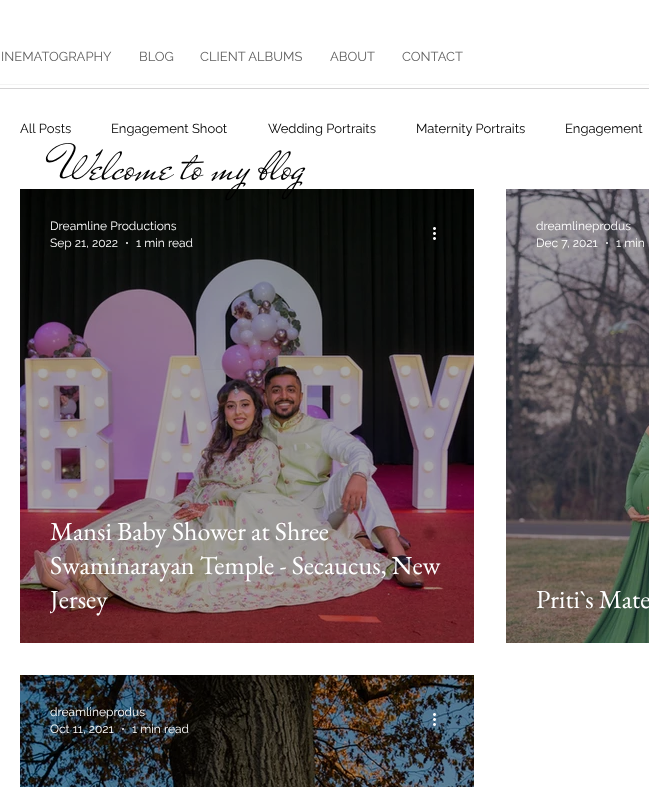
<!DOCTYPE html>
<meta charset="utf-8">
<style>body { margin: 0 } canvas { display: block }</style>
<canvas id="canvas" width="649" height="787"></canvas>
<script type="module">
  const canvas = document.getElementById("canvas");
  const ctx = canvas.getContext("2d");
  ctx.miterLimit = 4;
  ctx.fontKerning = "normal";
  async function loadImage(src) {
    const img = new Image();
    img.src = src;
    await img.decode();
    return img;
  }

  ctx.fillStyle = "#ffffff";
  ctx.fillRect(0, 0, 649, 787);
  ctx.font = "13px Raleway";
  ctx.fillStyle = "#606060";
  ctx.fillText("INEMATOGRAPHY", 1, 61);
  ctx.fillText("BLOG", 139, 61);
  ctx.fillText("CLIENT ALBUMS", 200, 61);
  ctx.fillText("ABOUT", 330, 61);
  ctx.fillText("CONTACT", 402, 61);
  ctx.fillStyle = "#000000";
  ctx.fillText("All Posts", 20, 133);
  ctx.fillText("Engagement Shoot", 111, 133);
  ctx.fillText("Wedding Portraits", 268, 133);
  ctx.fillText("Maternity Portraits", 416, 133);
  ctx.fillText("Engagement", 565, 133);
  ctx.drawImage(await loadImage("img1.png"), 20, 189, 454, 454);
  ctx.font = "12px Raleway";
  ctx.fillStyle = "#ffffff";
  ctx.fillText("Dreamline Productions", 50, 230);
  ctx.fillText("Sep 21, 2022", 50, 247);
  ctx.beginPath();
  ctx.arc(127, 243, 1, 0, Math.PI * 2);
  ctx.fill();
  ctx.fillText("1 min read", 136, 247);
  ctx.drawImage(await loadImage("img2.png"), 433, 227, 3, 13);
  ctx.font = "26px EB Garamond";
  ctx.fillText("Mansi Baby Shower at Shree", 50, 540);
  ctx.fillText("Swaminarayan Temple - Secaucus, New", 50, 574);
  ctx.save();
  ctx.beginPath();
  ctx.rect(50, 514, 394, 102);
  ctx.clip();
  ctx.fillText("Jersey", 50, 608);
  ctx.restore();
  ctx.drawImage(await loadImage("img3.png"), 506, 189, 143, 454);
  ctx.font = "12px Raleway";
  ctx.fillText("dreamlineprodus", 536, 230);
  ctx.fillText("Dec 7, 2021", 536, 247);
  ctx.beginPath();
  ctx.arc(607, 243, 1, 0, Math.PI * 2);
  ctx.fill();
  ctx.fillText("1 min", 616, 247);
  ctx.font = "26px EB Garamond";
  ctx.fillText("Priti`s Mate", 536, 608);
  ctx.drawImage(await loadImage("img4.png"), 20, 675, 454, 112);
  ctx.font = "12px Raleway";
  ctx.fillText("dreamlineprodus", 50, 716);
  ctx.fillText("Oct 11, 2021", 50, 733);
  ctx.beginPath();
  ctx.arc(123, 729, 1, 0, Math.PI * 2);
  ctx.fill();
  ctx.fillText("1 min read", 132, 733);
  ctx.drawImage(await loadImage("img5.png"), 433, 713, 3, 13);
  ctx.font = "52px Mr De Haviland";
  ctx.fillStyle = "#000000";
  ctx.fillText("Welcome to my blog", 57, 179);
  ctx.drawImage(await loadImage("img6.png"), 0, 84, 649, 5);
</script>
